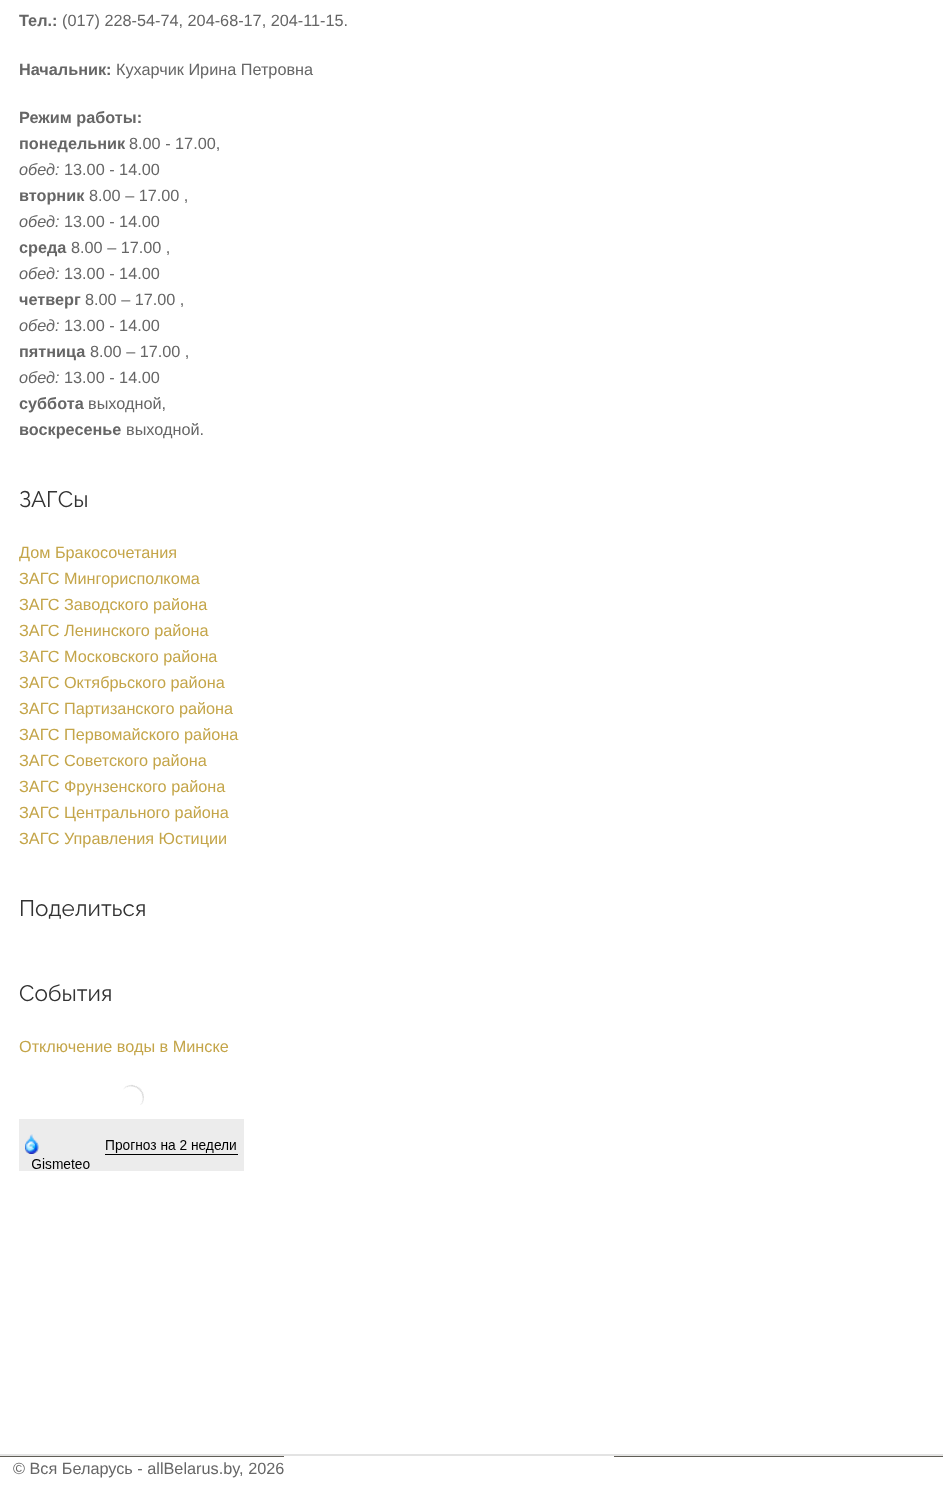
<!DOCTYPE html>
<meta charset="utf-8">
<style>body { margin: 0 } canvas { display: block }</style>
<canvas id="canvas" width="943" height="1505"></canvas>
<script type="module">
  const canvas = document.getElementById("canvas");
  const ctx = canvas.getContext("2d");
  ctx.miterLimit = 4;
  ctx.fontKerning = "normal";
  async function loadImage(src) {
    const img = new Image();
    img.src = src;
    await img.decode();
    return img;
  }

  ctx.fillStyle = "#ffffff";
  ctx.fillRect(0, 0, 943, 1505);
  ctx.font = "bold 16.25px Liberation Sans";
  ctx.fillStyle = "#666666";
  ctx.fillText("Тел.:", 19, 26);
  ctx.font = "16.25px Liberation Sans";
  ctx.fillText("(017) 228-54-74, 204-68-17, 204-11-15.", 62, 26);
  ctx.font = "bold 16.25px Liberation Sans";
  ctx.fillText("Начальник:", 19, 75);
  ctx.font = "16.25px Liberation Sans";
  ctx.fillText("Кухарчик Ирина Петровна", 116, 75);
  ctx.font = "bold 16.25px Liberation Sans";
  ctx.fillText("Режим работы:", 19, 123);
  ctx.fillText("понедельник", 19, 149);
  ctx.font = "16.25px Liberation Sans";
  ctx.fillText("8.00 - 17.00,", 129, 149);
  ctx.font = "italic 16.25px Liberation Sans";
  ctx.fillText("обед:", 19, 175);
  ctx.font = "16.25px Liberation Sans";
  ctx.fillText("13.00 - 14.00", 64, 175);
  ctx.font = "bold 16.25px Liberation Sans";
  ctx.fillText("вторник", 19, 201);
  ctx.font = "16.25px Liberation Sans";
  ctx.fillText("8.00 – 17.00 ,", 89, 201);
  ctx.font = "italic 16.25px Liberation Sans";
  ctx.fillText("обед:", 19, 227);
  ctx.font = "16.25px Liberation Sans";
  ctx.fillText("13.00 - 14.00", 64, 227);
  ctx.font = "bold 16.25px Liberation Sans";
  ctx.fillText("среда", 19, 253);
  ctx.font = "16.25px Liberation Sans";
  ctx.fillText("8.00 – 17.00 ,", 71, 253);
  ctx.font = "italic 16.25px Liberation Sans";
  ctx.fillText("обед:", 19, 279);
  ctx.font = "16.25px Liberation Sans";
  ctx.fillText("13.00 - 14.00", 64, 279);
  ctx.font = "bold 16.25px Liberation Sans";
  ctx.fillText("четверг", 19, 305);
  ctx.font = "16.25px Liberation Sans";
  ctx.fillText("8.00 – 17.00 ,", 85, 305);
  ctx.font = "italic 16.25px Liberation Sans";
  ctx.fillText("обед:", 19, 331);
  ctx.font = "16.25px Liberation Sans";
  ctx.fillText("13.00 - 14.00", 64, 331);
  ctx.font = "bold 16.25px Liberation Sans";
  ctx.fillText("пятница", 19, 357);
  ctx.font = "16.25px Liberation Sans";
  ctx.fillText("8.00 – 17.00 ,", 90, 357);
  ctx.font = "italic 16.25px Liberation Sans";
  ctx.fillText("обед:", 19, 383);
  ctx.font = "16.25px Liberation Sans";
  ctx.fillText("13.00 - 14.00", 64, 383);
  ctx.font = "bold 16.25px Liberation Sans";
  ctx.fillText("суббота", 19, 409);
  ctx.font = "16.25px Liberation Sans";
  ctx.fillText("выходной,", 88, 409);
  ctx.font = "bold 16.25px Liberation Sans";
  ctx.fillText("воскресенье", 19, 435);
  ctx.font = "16.25px Liberation Sans";
  ctx.fillText("выходной.", 126, 435);
  ctx.font = "100 22.5px Raleway";
  ctx.fillStyle = "#333333";
  ctx.fillText("ЗАГСы", 19, 507);
  ctx.save();
  ctx.beginPath();
  ctx.rect(19, 0, 906, 1454);
  ctx.clip();
  ctx.font = "16.25px Liberation Sans";
  ctx.fillStyle = "#c4a549";
  ctx.fillText("Дом Бракосочетания", 19, 558);
  ctx.restore();
  ctx.font = "16.25px Liberation Sans";
  ctx.fillStyle = "#c4a549";
  ctx.fillText("ЗАГС Мингорисполкома", 19, 584);
  ctx.fillText("ЗАГС Заводского района", 19, 610);
  ctx.fillText("ЗАГС Ленинского района", 19, 636);
  ctx.fillText("ЗАГС Московского района", 19, 662);
  ctx.fillText("ЗАГС Октябрьского района", 19, 688);
  ctx.fillText("ЗАГС Партизанского района", 19, 714);
  ctx.fillText("ЗАГС Первомайского района", 19, 740);
  ctx.fillText("ЗАГС Советского района", 19, 766);
  ctx.fillText("ЗАГС Фрунзенского района", 19, 792);
  ctx.fillText("ЗАГС Центрального района", 19, 818);
  ctx.fillText("ЗАГС Управления Юстиции", 19, 844);
  ctx.font = "100 22.5px Raleway";
  ctx.fillStyle = "#333333";
  ctx.fillText("Поделиться", 19, 916);
  ctx.fillText("События", 19, 1001);
  ctx.font = "16.25px Liberation Sans";
  ctx.fillStyle = "#c4a549";
  ctx.fillText("Отключение воды в Минске", 19, 1052);
  ctx.drawImage(await loadImage("img1.png"), 123, 1084, 21, 21);
  ctx.fillStyle = "#ececec";
  ctx.fillRect(19, 1119, 225, 52);
  ctx.drawImage(await loadImage("img2.png"), 25, 1134, 14, 20);
  ctx.drawImage(await loadImage("img3.png"), 32, 1158, 58, 11);
  ctx.drawImage(await loadImage("img4.png"), 106, 1140, 130, 13);
  ctx.fillStyle = "#000000";
  ctx.fillRect(105, 1154, 133, 1);
  ctx.fillStyle = "#615e57";
  ctx.fillRect(0, 1456, 943, 1);
  ctx.fillStyle = "#e3e3e3";
  ctx.fillRect(0, 1454, 943, 2);
  ctx.fillStyle = "#ffffff";
  ctx.fillRect(284, 1456, 330, 1);
  ctx.fillStyle = "#666666";
  ctx.fillText("© Вся Беларусь - allBelarus.by, 2026", 13, 1474);
</script>
